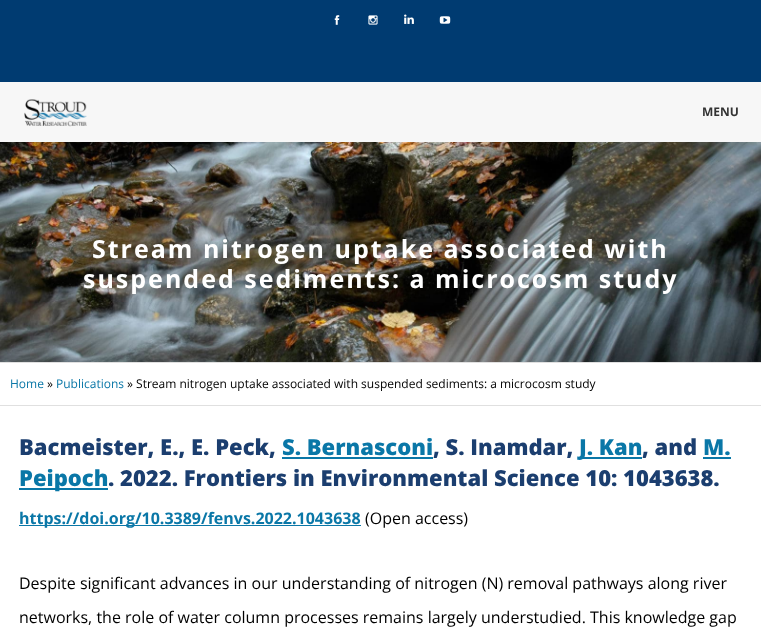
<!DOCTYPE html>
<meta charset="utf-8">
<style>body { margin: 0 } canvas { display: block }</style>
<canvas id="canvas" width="761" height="641"></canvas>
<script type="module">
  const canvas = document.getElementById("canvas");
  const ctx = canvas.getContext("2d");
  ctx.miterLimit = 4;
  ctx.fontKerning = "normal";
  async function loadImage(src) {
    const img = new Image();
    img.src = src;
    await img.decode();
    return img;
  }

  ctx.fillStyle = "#ffffff";
  ctx.fillRect(0, 0, 761, 641);
  ctx.fillStyle = "#003b71";
  ctx.fillRect(0, 0, 761, 82);
  ctx.drawImage(await loadImage("img1.png"), 334, 15, 6, 10);
  ctx.drawImage(await loadImage("img2.png"), 368, 15, 10, 10);
  ctx.drawImage(await loadImage("img3.png"), 404, 14, 10, 10);
  ctx.drawImage(await loadImage("img4.png"), 439, 16, 12, 8);
  ctx.fillStyle = "#f7f7f7";
  ctx.fillRect(0, 82, 761, 60);
  ctx.drawImage(await loadImage("img5.png"), 24, 99, 63, 28);
  ctx.font = "bold 12px Open Sans";
  ctx.fillStyle = "#333333";
  ctx.fillText("MENU", 702, 116);
  ctx.drawImage(await loadImage("img6.png"), 0, 142, 761, 220);
  ctx.letterSpacing = "2px";
  ctx.font = "bold 25px Open Sans";
  ctx.fillStyle = "#ffffff";
  ctx.fillText("Stream nitrogen uptake associated with", 92, 258);
  ctx.fillText("suspended sediments: a microcosm study", 83, 288);
  ctx.fillStyle = "#e0e0e0";
  ctx.fillRect(0, 362, 761, 1);
  ctx.fillRect(0, 405, 761, 1);
  ctx.letterSpacing = "0px";
  ctx.font = "12px Open Sans";
  ctx.fillStyle = "#0a77a7";
  ctx.fillText("Home", 10, 388);
  ctx.fillStyle = "#000000";
  ctx.fillText("»", 47, 388);
  ctx.fillStyle = "#0a77a7";
  ctx.fillText("Publications", 56, 388);
  ctx.fillStyle = "#000000";
  ctx.fillText("» Stream nitrogen uptake associated with suspended sediments: a microcosm study", 127, 388);
  ctx.font = "800 22px Open Sans";
  ctx.fillStyle = "#1b3e6f";
  ctx.fillText("Bacmeister, E., E. Peck,", 19, 455);
  ctx.fillStyle = "#0a77a7";
  ctx.fillText("S. Bernasconi", 282, 455);
  ctx.fillRect(282, 457, 151, 2);
  ctx.fillStyle = "#1b3e6f";
  ctx.fillText(", S. Inamdar,", 433, 455);
  ctx.fillStyle = "#0a77a7";
  ctx.fillRect(579, 457, 63, 2);
  ctx.fillText("J. Kan", 579, 455);
  ctx.fillStyle = "#1b3e6f";
  ctx.fillText(", and", 642, 455);
  ctx.fillStyle = "#0a77a7";
  ctx.fillText("M.", 703, 455);
  ctx.fillRect(703, 457, 28, 2);
  ctx.fillRect(19, 488, 89, 2);
  ctx.fillText("Peipoch", 19, 486);
  ctx.fillStyle = "#1b3e6f";
  ctx.fillText(". 2022. Frontiers in Environmental Science 10: 1043638.", 108, 486);
  ctx.fillStyle = "#0a77a7";
  ctx.fillRect(19, 525, 342, 1);
  ctx.font = "bold 16px Open Sans";
  ctx.fillText("https://doi.org/10.3389/fenvs.2022.1043638", 19, 524);
  ctx.font = "16px Open Sans";
  ctx.fillStyle = "#000000";
  ctx.fillText("(Open access)", 365, 524);
  ctx.fillText("Despite significant advances in our understanding of nitrogen (N) removal pathways along river", 19, 589);
  ctx.fillText("networks, the role of water column processes remains largely understudied. This knowledge gap", 19, 623);
</script>
